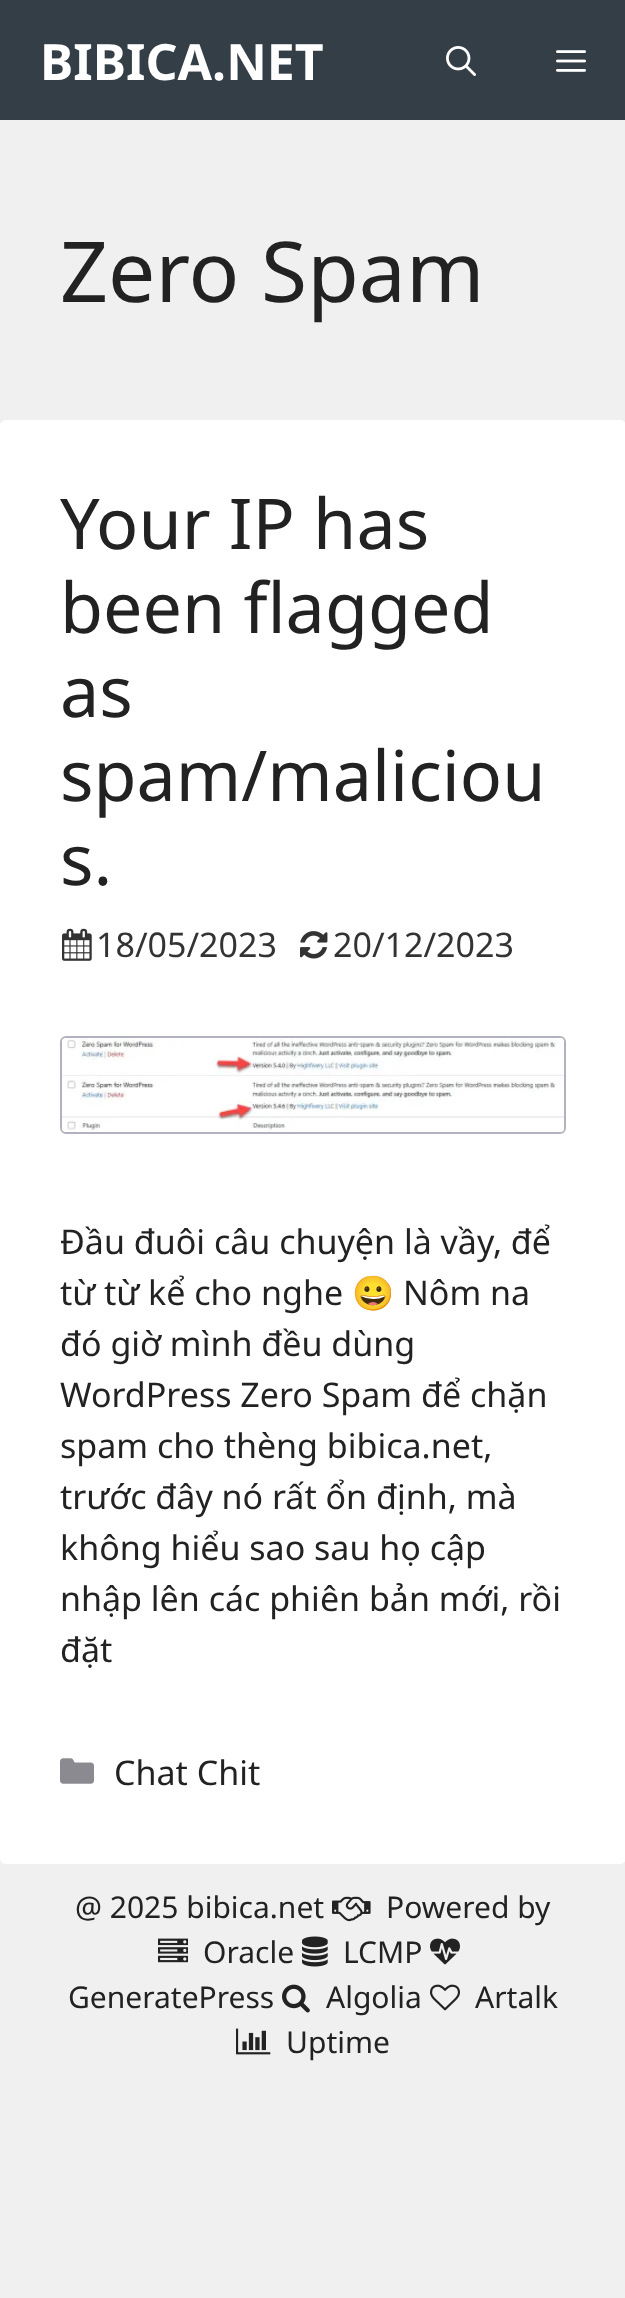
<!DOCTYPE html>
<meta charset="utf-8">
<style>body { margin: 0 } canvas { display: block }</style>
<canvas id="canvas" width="625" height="2298"></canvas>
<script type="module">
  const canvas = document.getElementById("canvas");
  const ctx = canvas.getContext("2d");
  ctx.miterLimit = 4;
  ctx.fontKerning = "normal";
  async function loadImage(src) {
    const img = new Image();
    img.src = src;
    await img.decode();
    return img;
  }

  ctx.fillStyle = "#f0f0f0";
  ctx.fillRect(0, 0, 625, 2298);
  ctx.fillStyle = "#343e47";
  ctx.fillRect(0, 0, 625, 120);
  ctx.font = "bold 50px Noto Sans";
  ctx.fillStyle = "#ffffff";
  ctx.fillText("BIBICA.NET", 40, 80);
  ctx.drawImage(await loadImage("img1.png"), 446, 46, 30, 30);
  ctx.drawImage(await loadImage("img2.png"), 556, 50, 30, 22);
  ctx.font = "84px Noto Sans";
  ctx.fillStyle = "#222222";
  ctx.fillText("Zero Spam", 60, 302);
  ctx.fillStyle = "#ffffff";
  ctx.beginPath();
  ctx.roundRect(0, 420, 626, 1444, 6);
  ctx.fill();
  ctx.font = "70px Noto Sans";
  ctx.fillStyle = "#222222";
  ctx.fillText("Your IP has", 60, 549);
  ctx.fillText("been flagged", 60, 633);
  ctx.fillText("as", 60, 717);
  ctx.fillText("spam/maliciou", 60, 801);
  ctx.fillText("s.", 60, 885);
  ctx.drawImage(await loadImage("img3.png"), 62, 928, 30, 33);
  ctx.font = "34px Noto Sans";
  ctx.fillStyle = "#333333";
  ctx.fillText("18/05/2023", 96, 957);
  ctx.drawImage(await loadImage("img4.png"), 300, 931, 28, 28);
  ctx.fillText("20/12/2023", 333, 957);
  ctx.beginPath();
  ctx.roundRect(61, 1037, 504, 96, 5);
  ctx.strokeStyle = "#b2b2be";
  ctx.lineWidth = 2;
  ctx.stroke();
  ctx.drawImage(await loadImage("img5.png"), 62, 1038, 502, 94);
  ctx.fillStyle = "#222222";
  ctx.fillText("Đầu đuôi câu chuyện là vầy, để", 60, 1254);
  ctx.fillText("từ từ kể cho nghe", 60, 1305);
  ctx.font = "34px Noto Color Emoji";
  ctx.fillText("😀", 352, 1305);
  ctx.font = "34px Noto Sans";
  ctx.fillText("Nôm na", 403, 1305);
  ctx.fillText("đó giờ mình đều dùng", 60, 1356);
  ctx.fillText("WordPress Zero Spam để chặn", 60, 1407);
  ctx.fillText("spam cho thèng bibica.net,", 60, 1458);
  ctx.fillText("trước đây nó rất ổn định, mà", 60, 1509);
  ctx.fillText("không hiểu sao sau họ cập", 60, 1560);
  ctx.fillText("nhập lên các phiên bản mới, rồi", 60, 1611);
  ctx.fillText("đặt", 60, 1662);
  ctx.drawImage(await loadImage("img6.png"), 60, 1758, 34, 26);
  ctx.fillText("Chat Chit", 114, 1785);
  ctx.font = "30px Noto Sans";
  ctx.fillText("@ 2025 bibica.net", 75, 1918);
  ctx.drawImage(await loadImage("img7.png"), 332, 1896, 39, 26);
  ctx.fillText("Powered by", 386, 1918);
  ctx.drawImage(await loadImage("img8.png"), 158, 1938, 30, 25);
  ctx.fillText("Oracle", 203, 1963);
  ctx.drawImage(await loadImage("img9.png"), 302, 1936, 26, 31);
  ctx.fillText("LCMP", 343, 1963);
  ctx.drawImage(await loadImage("img10.png"), 430, 1938, 30, 27);
  ctx.fillText("GeneratePress", 68, 2008);
  ctx.drawImage(await loadImage("img11.png"), 282, 1984, 28, 29);
  ctx.fillText("Algolia", 326, 2008);
  ctx.drawImage(await loadImage("img12.png"), 430, 1984, 30, 27);
  ctx.fillText("Artalk", 475, 2008);
  ctx.drawImage(await loadImage("img13.png"), 236, 2028, 35, 27);
  ctx.fillText("Uptime", 286, 2053);
</script>
